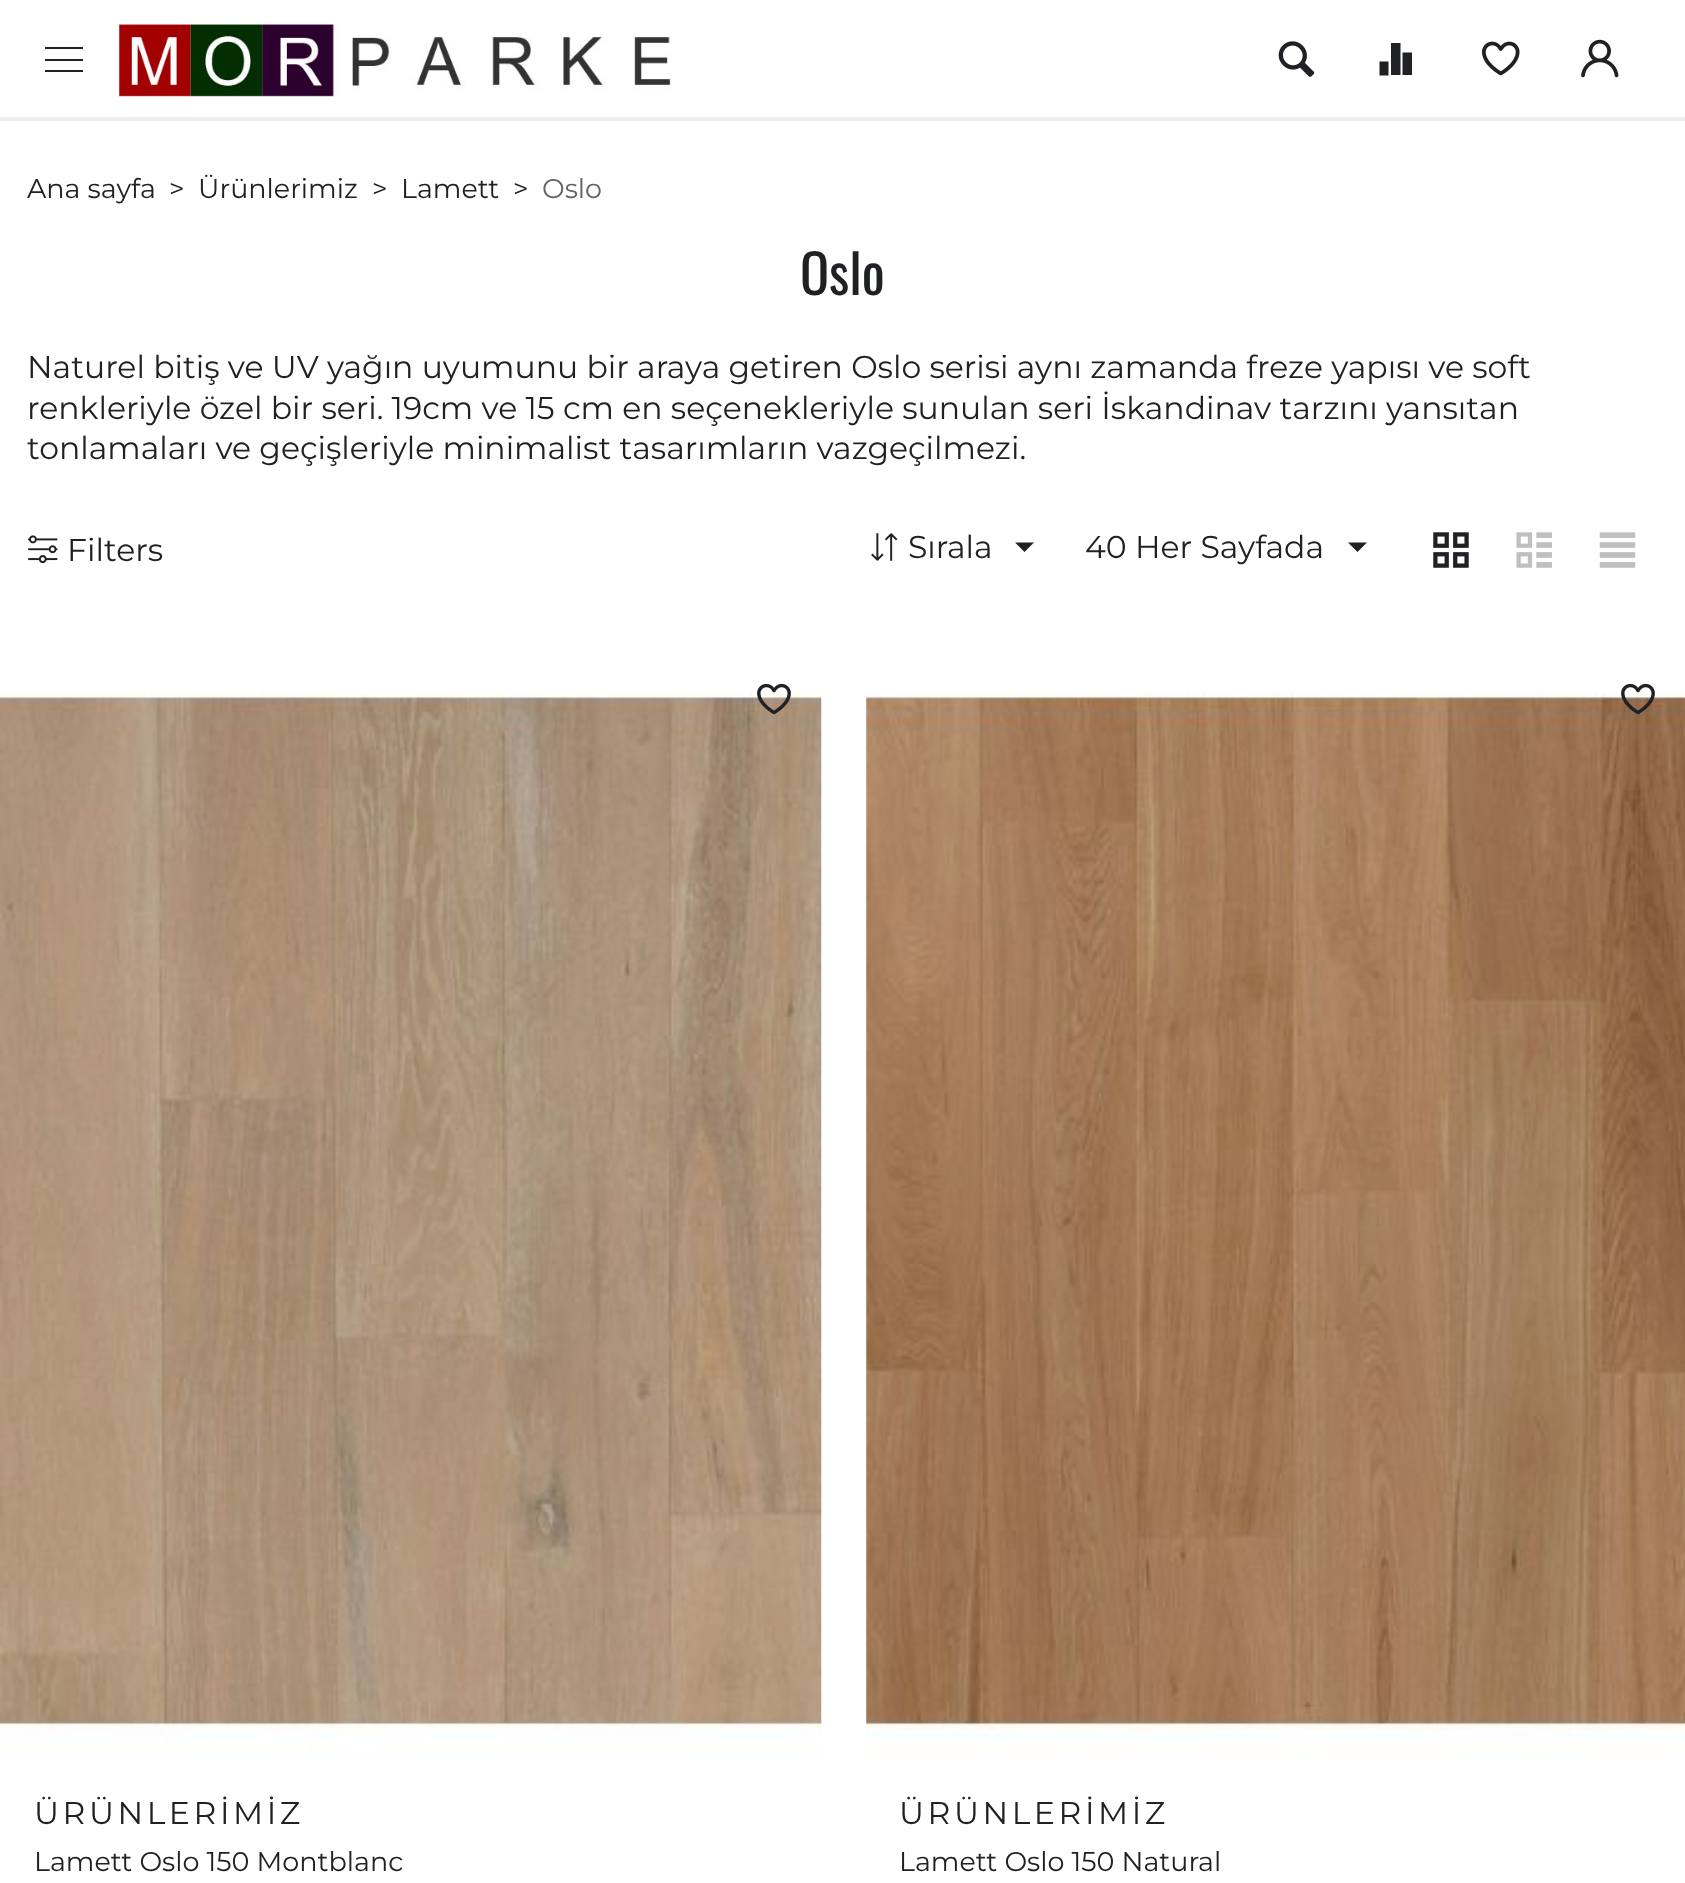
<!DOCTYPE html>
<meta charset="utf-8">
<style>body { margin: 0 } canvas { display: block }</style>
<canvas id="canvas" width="1685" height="1883"></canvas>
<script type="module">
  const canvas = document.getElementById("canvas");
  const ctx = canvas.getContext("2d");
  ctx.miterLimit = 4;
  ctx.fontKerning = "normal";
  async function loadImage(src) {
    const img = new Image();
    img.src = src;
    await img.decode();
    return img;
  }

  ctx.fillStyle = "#ffffff";
  ctx.fillRect(0, 0, 1685, 1883);
  ctx.fillStyle = "#202124";
  ctx.fillRect(45, 47, 38, 2);
  ctx.fillRect(45, 59, 38, 2);
  ctx.fillRect(45, 70, 38, 2);
  ctx.drawImage(await loadImage("img1.png"), 119, 24, 554, 74);
  ctx.drawImage(await loadImage("img2.png"), 1278, 41, 37, 36);
  ctx.beginPath();
  ctx.moveTo(1379.5, 75.5);
  ctx.lineTo(1379.5, 61.5);
  ctx.lineTo(1388.5, 61.5);
  ctx.lineTo(1388.5, 75.5);
  ctx.closePath();
  ctx.moveTo(1391, 75);
  ctx.lineTo(1391, 43);
  ctx.lineTo(1400.5, 43);
  ctx.lineTo(1400.5, 75);
  ctx.closePath();
  ctx.moveTo(1402.5, 75);
  ctx.lineTo(1402.5, 52.5);
  ctx.lineTo(1412, 52.5);
  ctx.lineTo(1412, 75);
  ctx.closePath();
  ctx.fill();
  ctx.drawImage(await loadImage("img3.png"), 1482, 41, 38, 35);
  ctx.drawImage(await loadImage("img4.png"), 1581, 39, 38, 39);
  ctx.fillStyle = "#eeeeee";
  ctx.fillRect(0, 117, 1685, 4);
  ctx.font = "100 27px Montserrat";
  ctx.fillStyle = "#202124";
  ctx.fillText("Ana sayfa", 27, 198);
  ctx.fillText(">", 169, 198);
  ctx.fillText("Ürünlerimiz", 198, 198);
  ctx.fillText(">", 372, 198);
  ctx.fillText("Lamett", 401, 198);
  ctx.fillText(">", 513, 198);
  ctx.fillStyle = "#636466";
  ctx.fillText("Oslo", 542, 198);
  ctx.font = "54px Oswald";
  ctx.fillStyle = "#202124";
  ctx.fillText("Oslo", 800, 295);
  ctx.font = "100 31.5px Montserrat";
  ctx.fillText("Naturel bitiş ve UV yağın uyumunu bir araya getiren Oslo serisi aynı zamanda freze yapısı ve soft", 27, 378);
  ctx.fillText("renkleriyle özel bir seri. 19cm ve 15 cm en seçenekleriyle sunulan seri İskandinav tarzını yansıtan", 27, 419);
  ctx.fillText("tonlamaları ve geçişleriyle minimalist tasarımların vazgeçilmezi.", 27, 459);
  ctx.drawImage(await loadImage("img5.png"), 871, 533, 27, 28);
  ctx.fillText("Sırala", 908, 558);
  ctx.beginPath();
  ctx.moveTo(1024.5, 552);
  ctx.lineTo(1015, 542.5);
  ctx.lineTo(1034, 542.5);
  ctx.closePath();
  ctx.fill();
  ctx.fillText("40 Her Sayfada", 1085, 558);
  ctx.beginPath();
  ctx.moveTo(1357.5, 552);
  ctx.lineTo(1348, 542.5);
  ctx.lineTo(1367, 542.5);
  ctx.closePath();
  ctx.fill();
  ctx.drawImage(await loadImage("img6.png"), 1433, 532, 36, 36);
  ctx.drawImage(await loadImage("img7.png"), 1516, 532, 36, 36);
  ctx.drawImage(await loadImage("img8.png"), 1599, 532, 37, 36);
  ctx.drawImage(await loadImage("img9.png"), 0, 655, 822, 1111);
  ctx.drawImage(await loadImage("img10.png"), 757, 683, 34, 32);
  ctx.letterSpacing = "3.6px";
  ctx.fillText("ÜRÜNLERİMİZ", 34, 1824);
  ctx.letterSpacing = "0px";
  ctx.font = "100 27px Montserrat";
  ctx.fillText("Lamett Oslo 150 Montblanc", 34, 1871);
  ctx.drawImage(await loadImage("img11.png"), 866, 655, 819, 1111);
  ctx.drawImage(await loadImage("img12.png"), 1621, 683, 34, 32);
  ctx.letterSpacing = "3.6px";
  ctx.font = "100 31.5px Montserrat";
  ctx.fillText("ÜRÜNLERİMİZ", 899, 1824);
  ctx.letterSpacing = "0px";
  ctx.font = "100 27px Montserrat";
  ctx.fillText("Lamett Oslo 150 Natural", 899, 1871);
  ctx.drawImage(await loadImage("img13.png"), 28, 535, 30, 29);
  ctx.font = "100 31.5px Montserrat";
  ctx.fillText("Filters", 67, 561);
</script>
